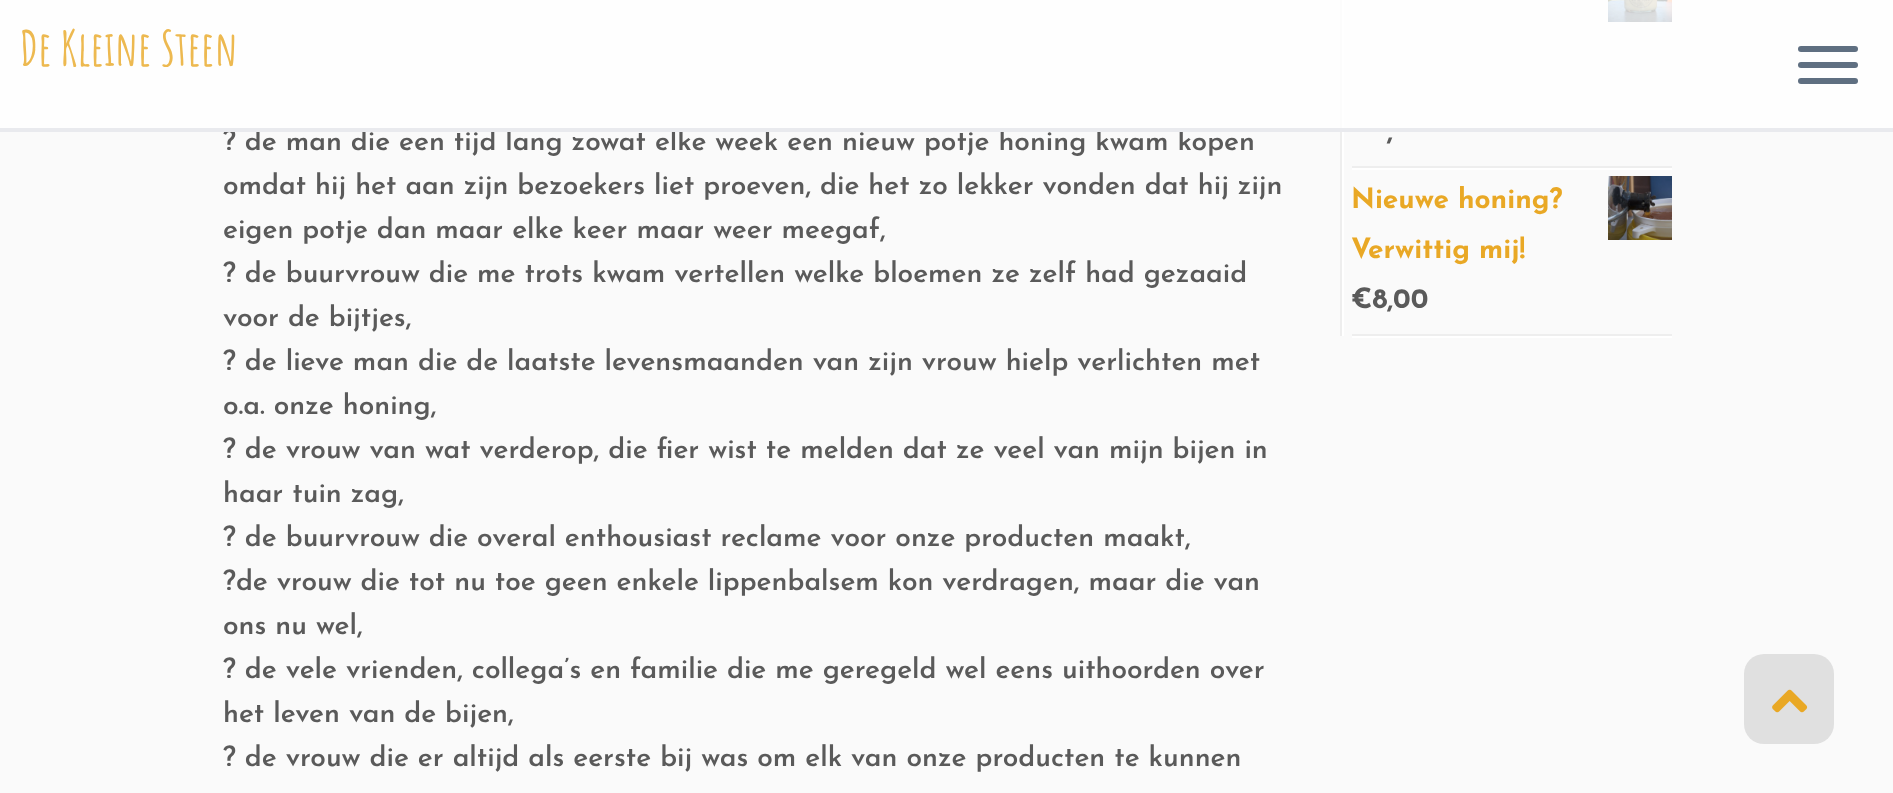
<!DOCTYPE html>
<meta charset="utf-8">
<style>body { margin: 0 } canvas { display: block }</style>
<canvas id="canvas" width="1893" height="793"></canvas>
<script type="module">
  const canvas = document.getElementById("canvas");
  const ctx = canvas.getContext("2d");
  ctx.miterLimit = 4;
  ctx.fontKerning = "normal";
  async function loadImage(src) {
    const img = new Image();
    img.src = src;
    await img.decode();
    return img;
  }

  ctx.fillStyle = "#fafafa";
  ctx.fillRect(0, 0, 1893, 793);
  ctx.fillStyle = "#eeeeee";
  ctx.fillRect(1340, 0, 2, 336);
  ctx.fillStyle = "#ffffff";
  ctx.fillRect(1342, 0, 2, 336);
  ctx.drawImage(await loadImage("img1.png"), 1608, 0, 64, 22);
  ctx.fillStyle = "rgba(255, 255, 255, 0.8)";
  ctx.fillRect(0, 0, 1893, 128);
  ctx.font = "100 28px Josefin Sans";
  ctx.fillStyle = "#5a5a5a";
  ctx.fillText("? de man die een tijd lang zowat elke week een nieuw potje honing kwam kopen", 223, 150);
  ctx.fillStyle = "#e9eaee";
  ctx.fillRect(0, 128, 1893, 4);
  ctx.font = "bold 48px Amatic SC";
  ctx.fillStyle = "#edb950";
  ctx.fillText("De Kleine Steen", 20, 66);
  ctx.fillStyle = "#5f6f81";
  ctx.beginPath();
  ctx.roundRect(1798, 46, 60, 6, 3);
  ctx.fill();
  ctx.beginPath();
  ctx.roundRect(1798, 62, 60, 6, 3);
  ctx.fill();
  ctx.beginPath();
  ctx.roundRect(1798, 78, 60, 6, 3);
  ctx.fill();
  ctx.font = "100 28px Josefin Sans";
  ctx.fillStyle = "#5a5a5a";
  ctx.fillText("omdat hij het aan zijn bezoekers liet proeven, die het zo lekker vonden dat hij zijn", 223, 194);
  ctx.fillText("eigen potje dan maar elke keer maar weer meegaf,", 223, 238);
  ctx.fillText("? de buurvrouw die me trots kwam vertellen welke bloemen ze zelf had gezaaid", 223, 282);
  ctx.fillText("voor de bijtjes,", 223, 326);
  ctx.fillText("? de lieve man die de laatste levensmaanden van zijn vrouw hielp verlichten met", 223, 370);
  ctx.fillText("o.a. onze honing,", 223, 414);
  ctx.fillText("? de vrouw van wat verderop, die fier wist te melden dat ze veel van mijn bijen in", 223, 458);
  ctx.fillText("haar tuin zag,", 223, 502);
  ctx.fillText("? de buurvrouw die overal enthousiast reclame voor onze producten maakt,", 223, 546);
  ctx.fillText("?de vrouw die tot nu toe geen enkele lippenbalsem kon verdragen, maar die van", 223, 590);
  ctx.fillText("ons nu wel,", 223, 634);
  ctx.fillText("? de vele vrienden, collega’s en familie die me geregeld wel eens uithoorden over", 223, 678);
  ctx.fillText("het leven van de bijen,", 223, 722);
  ctx.fillText("? de vrouw die er altijd als eerste bij was om elk van onze producten te kunnen", 223, 766);
  ctx.fillStyle = "#eeeeee";
  ctx.fillRect(1352, 166, 320, 2);
  ctx.font = "100 28px 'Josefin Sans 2'";
  ctx.fillStyle = "#5a5a5a";
  ctx.fillText(",", 1387, 140);
  ctx.fillStyle = "#ffffff";
  ctx.fillRect(1352, 168, 320, 2);
  ctx.fillStyle = "#eeeeee";
  ctx.fillRect(1352, 334, 320, 2);
  ctx.fillStyle = "#e9a825";
  ctx.fillText("Nieuwe honing?", 1351, 208);
  ctx.drawImage(await loadImage("img2.png"), 1608, 176, 64, 64);
  ctx.fillText("Verwittig mij!", 1351, 258);
  ctx.fillStyle = "#5a5a5a";
  ctx.fillText("€8,00", 1351, 308);
  ctx.fillStyle = "#ffffff";
  ctx.fillRect(1352, 336, 320, 2);
  ctx.fillStyle = "#e0e0e0";
  ctx.beginPath();
  ctx.roundRect(1744, 654, 90, 90, 20);
  ctx.fill();
  ctx.drawImage(await loadImage("img3.png"), 1772, 689, 36, 24);
</script>
